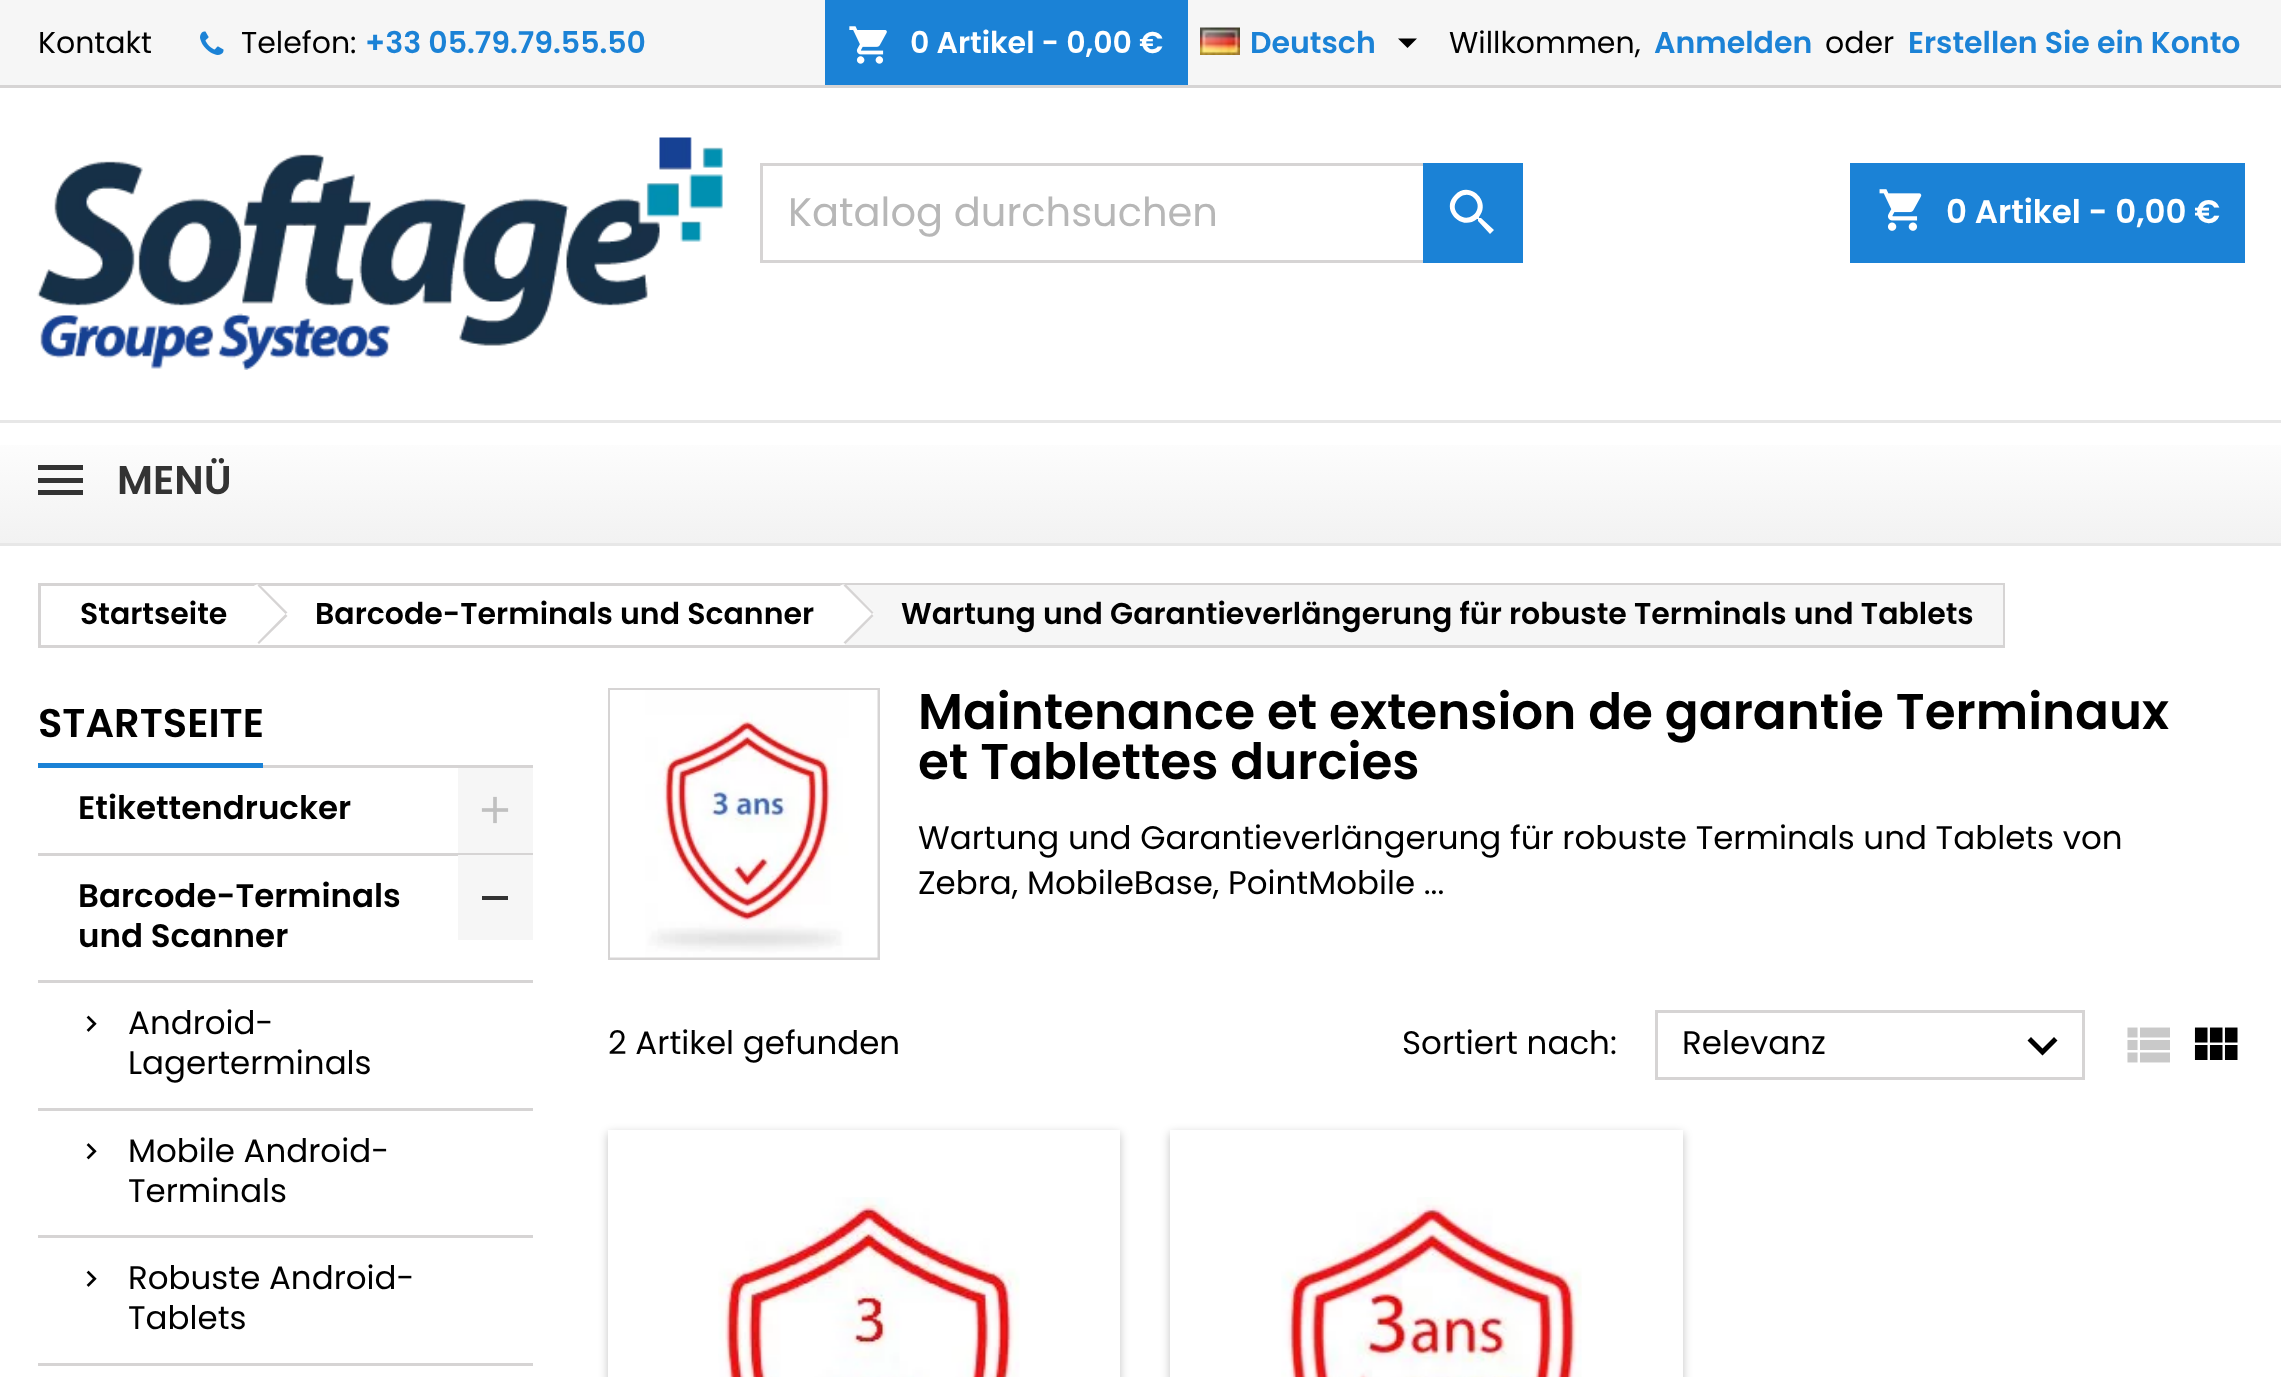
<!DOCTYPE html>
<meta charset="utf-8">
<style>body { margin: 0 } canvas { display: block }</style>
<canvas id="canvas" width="2281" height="1377"></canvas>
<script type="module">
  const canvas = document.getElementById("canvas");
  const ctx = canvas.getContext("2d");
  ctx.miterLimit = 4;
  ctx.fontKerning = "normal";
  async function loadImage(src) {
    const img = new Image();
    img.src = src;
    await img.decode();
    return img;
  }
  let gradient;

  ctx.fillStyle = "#ffffff";
  ctx.fillRect(0, 0, 2281, 1377);
  ctx.fillStyle = "#f6f6f6";
  ctx.fillRect(0, 0, 2281, 85);
  ctx.fillStyle = "#d6d4d4";
  ctx.fillRect(0, 85, 2281, 3);
  ctx.font = "30px Poppins";
  ctx.fillStyle = "#000000";
  ctx.fillText("Kontakt", 38, 53);
  ctx.drawImage(await loadImage("img1.png"), 200, 31, 24, 24);
  ctx.fillText("Telefon:", 241, 53);
  ctx.font = "600 30px Poppins";
  ctx.fillStyle = "#1b82d6";
  ctx.fillText("+33 05.79.79.55.50", 365, 53);
  ctx.fillRect(825, 0, 363, 85);
  ctx.drawImage(await loadImage("img2.png"), 849, 26, 38, 38);
  ctx.fillStyle = "#ffffff";
  ctx.fillText("0 Artikel - 0,00 €", 910, 53);
  ctx.drawImage(await loadImage("img3.png"), 1200, 27, 40, 28);
  ctx.fillStyle = "#1b82d6";
  ctx.fillText("Deutsch", 1250, 53);
  ctx.fillStyle = "#000000";
  ctx.beginPath();
  ctx.moveTo(1398, 38.5);
  ctx.lineTo(1417, 38.5);
  ctx.lineTo(1407.5, 48);
  ctx.closePath();
  ctx.fill();
  ctx.font = "30px Poppins";
  ctx.fillText("Willkommen,", 1449, 53);
  ctx.font = "600 30px Poppins";
  ctx.fillStyle = "#1b82d6";
  ctx.fillText("Anmelden", 1654, 53);
  ctx.font = "30px Poppins";
  ctx.fillStyle = "#000000";
  ctx.fillText("oder", 1825, 53);
  ctx.font = "600 30px Poppins";
  ctx.fillStyle = "#1b82d6";
  ctx.fillText("Erstellen Sie ein Konto", 1908, 53);
  ctx.drawImage(await loadImage("img4.png"), 37, 137, 686, 233);
  ctx.strokeStyle = "#d6d4d4";
  ctx.lineWidth = 3;
  ctx.strokeRect(761.5, 164.5, 760, 97);
  ctx.font = "40px Poppins";
  ctx.fillStyle = "#b7b7b7";
  ctx.fillText("Katalog durchsuchen", 788, 226);
  ctx.fillStyle = "#1b82d6";
  ctx.fillRect(1423, 163, 100, 100);
  ctx.fillStyle = "#ffffff";
  ctx.beginPath();
  ctx.moveTo(1458, 214);
  ctx.bezierCurveTo(1469, 225, 1485, 209, 1474, 198);
  ctx.bezierCurveTo(1464, 188, 1448, 204, 1458, 214);
  ctx.closePath();
  ctx.moveTo(1481, 218);
  ctx.lineTo(1494, 230);
  ctx.lineTo(1490, 234);
  ctx.lineTo(1478, 221);
  ctx.lineTo(1478, 219);
  ctx.lineTo(1477, 219);
  ctx.bezierCurveTo(1461, 232, 1440, 209, 1455, 195);
  ctx.bezierCurveTo(1469, 180, 1492, 201, 1479, 217);
  ctx.lineTo(1479, 218);
  ctx.closePath();
  ctx.fill();
  ctx.fillStyle = "#1b82d6";
  ctx.fillRect(1850, 163, 395, 100);
  ctx.drawImage(await loadImage("img5.png"), 1879, 189, 43, 42);
  ctx.font = "600 32.5px Poppins";
  ctx.fillStyle = "#ffffff";
  ctx.fillText("0 Artikel - 0,00 €", 1946, 223);
  gradient = ctx.createLinearGradient(1141, 422, 1141, 543);
  gradient.addColorStop(0, "#ffffff");
  gradient.addColorStop(1, "#f2f2f2");
  ctx.fillStyle = gradient;
  ctx.fillRect(0, 445, 2281, 98);
  ctx.fillStyle = "#e7e7e7";
  ctx.fillRect(0, 420, 2281, 3);
  ctx.fillRect(0, 543, 2281, 3);
  ctx.fillStyle = "#333333";
  ctx.fillRect(38, 465, 45, 5);
  ctx.fillRect(38, 478, 45, 5);
  ctx.fillRect(38, 490, 45, 5);
  ctx.font = "600 40px Poppins";
  ctx.fillText("MENÜ", 117, 494);
  ctx.strokeRect(39.5, 584.5, 1964, 62);
  ctx.font = "600 30px Poppins";
  ctx.fillStyle = "#000000";
  ctx.fillText("Startseite", 80, 624);
  ctx.fillStyle = "#ffffff";
  ctx.beginPath();
  ctx.moveTo(261, 586);
  ctx.lineTo(286, 610);
  ctx.bezierCurveTo(288, 612, 288, 616, 286, 618);
  ctx.lineTo(261, 642);
  ctx.bezierCurveTo(259, 644, 256, 644, 254, 642);
  ctx.lineTo(229, 618);
  ctx.bezierCurveTo(227, 616, 227, 612, 229, 610);
  ctx.lineTo(254, 586);
  ctx.bezierCurveTo(256, 584, 259, 584, 261, 586);
  ctx.closePath();
  ctx.fill();
  ctx.fillStyle = "#d6d4d4";
  ctx.beginPath();
  ctx.moveTo(259, 584);
  ctx.lineTo(287.5, 612.5);
  ctx.lineTo(285.5, 614);
  ctx.lineTo(257.5, 585.5);
  ctx.closePath();
  ctx.moveTo(285.5, 614);
  ctx.lineTo(287.5, 616);
  ctx.lineTo(259, 644);
  ctx.lineTo(257.5, 642.5);
  ctx.closePath();
  ctx.fill();
  ctx.fillStyle = "#000000";
  ctx.fillText("Barcode-Terminals und Scanner", 315, 624);
  ctx.fillStyle = "#f6f6f6";
  ctx.fillRect(845, 585, 1158, 60);
  ctx.fillStyle = "#ffffff";
  ctx.beginPath();
  ctx.moveTo(847, 586);
  ctx.lineTo(872, 610);
  ctx.bezierCurveTo(874, 612, 874, 616, 872, 618);
  ctx.lineTo(847, 642);
  ctx.bezierCurveTo(845, 644, 842, 644, 840, 642);
  ctx.lineTo(815, 618);
  ctx.bezierCurveTo(813, 616, 813, 612, 815, 610);
  ctx.lineTo(840, 586);
  ctx.bezierCurveTo(842, 584, 845, 584, 847, 586);
  ctx.closePath();
  ctx.fill();
  ctx.fillStyle = "#d6d4d4";
  ctx.beginPath();
  ctx.moveTo(845.5, 584);
  ctx.lineTo(873.5, 612.5);
  ctx.lineTo(872, 614);
  ctx.lineTo(843.5, 585.5);
  ctx.closePath();
  ctx.moveTo(872, 614);
  ctx.lineTo(873.5, 616);
  ctx.lineTo(845.5, 644);
  ctx.lineTo(843.5, 642.5);
  ctx.closePath();
  ctx.fill();
  ctx.fillStyle = "#000000";
  ctx.fillText("Wartung und Garantieverlängerung für robuste Terminals und Tablets", 901, 624);
  ctx.fillStyle = "#d6d4d4";
  ctx.fillRect(263, 765, 270, 3);
  ctx.fillStyle = "#1b82d6";
  ctx.fillRect(38, 763, 225, 5);
  ctx.font = "600 40px Poppins";
  ctx.fillStyle = "#000000";
  ctx.fillText("STARTSEITE", 38, 737);
  ctx.fillStyle = "#d6d4d4";
  ctx.fillRect(38, 853, 495, 3);
  ctx.font = "600 32.5px Poppins";
  ctx.fillStyle = "#000000";
  ctx.fillText("Etikettendrucker", 78, 819);
  ctx.fillStyle = "#f6f6f6";
  ctx.fillRect(458, 768, 75, 85);
  ctx.drawImage(await loadImage("img6.png"), 481, 796, 28, 28);
  ctx.fillStyle = "#d6d4d4";
  ctx.fillRect(38, 980, 495, 3);
  ctx.fillStyle = "#000000";
  ctx.fillText("Barcode-Terminals", 78, 907);
  ctx.fillText("und Scanner", 78, 947);
  ctx.fillStyle = "#f6f6f6";
  ctx.fillRect(458, 855, 75, 85);
  ctx.fillStyle = "#333333";
  ctx.fillRect(482, 896, 26, 4);
  ctx.fillStyle = "#d6d4d4";
  ctx.fillRect(38, 1108, 495, 3);
  ctx.drawImage(await loadImage("img7.png"), 86, 1015, 11, 17);
  ctx.font = "32.5px Poppins";
  ctx.fillStyle = "#000000";
  ctx.fillText("Android-", 128, 1034);
  ctx.fillText("Lagerterminals", 128, 1074);
  ctx.fillStyle = "#d6d4d4";
  ctx.fillRect(38, 1235, 495, 3);
  ctx.drawImage(await loadImage("img8.png"), 86, 1143, 11, 17);
  ctx.fillStyle = "#000000";
  ctx.fillText("Mobile Android-", 128, 1162);
  ctx.fillText("Terminals", 128, 1202);
  ctx.fillStyle = "#d6d4d4";
  ctx.fillRect(38, 1363, 495, 3);
  ctx.drawImage(await loadImage("img7.png"), 86, 1270, 11, 17);
  ctx.fillStyle = "#000000";
  ctx.fillText("Robuste Android-", 128, 1289);
  ctx.fillText("Tablets", 128, 1329);
  ctx.strokeRect(609.5, 689.5, 269, 269);
  ctx.drawImage(await loadImage("img9.png"), 610, 690, 268, 268);
  ctx.font = "600 50px Poppins";
  ctx.fillText("Maintenance et extension de garantie Terminaux", 918, 729);
  ctx.fillText("et Tablettes durcies", 918, 779);
  ctx.font = "32.5px Poppins";
  ctx.fillText("Wartung und Garantieverlängerung für robuste Terminals und Tablets von", 918, 849);
  ctx.fillText("Zebra, MobileBase, PointMobile ...", 918, 894);
  ctx.fillText("2 Artikel gefunden", 608, 1054);
  ctx.fillText("Sortiert nach:", 1402, 1054);
  ctx.strokeRect(1656.5, 1011.5, 427, 67);
  ctx.fillText("Relevanz", 1682, 1054);
  ctx.beginPath();
  ctx.moveTo(2031, 1037);
  ctx.lineTo(2042.5, 1048.5);
  ctx.lineTo(2054, 1037);
  ctx.lineTo(2057.5, 1040.5);
  ctx.lineTo(2042.5, 1055.5);
  ctx.lineTo(2027.5, 1040.5);
  ctx.closePath();
  ctx.fill();
  ctx.drawImage(await loadImage("img10.png"), 2127, 1027, 43, 36);
  ctx.drawImage(await loadImage("img11.png"), 2194, 1027, 44, 33);
  ctx.save();
  ctx.beginPath();
  ctx.moveTo(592, 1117);
  ctx.lineTo(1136, 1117);
  ctx.lineTo(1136, 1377);
  ctx.lineTo(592, 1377);
  ctx.closePath();
  ctx.moveTo(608, 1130);
  ctx.lineTo(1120, 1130);
  ctx.lineTo(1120, 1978);
  ctx.lineTo(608, 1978);
  ctx.closePath();
  ctx.clip("evenodd");
  ctx.fillStyle = "rgba(0, 0, 0, 0.24)";
  ctx.filter = "blur(5px)";
  ctx.beginPath();
  ctx.rect(608, 1133, 512, 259);
  ctx.fill();
  ctx.filter = "none";
  ctx.restore();
  ctx.drawImage(await loadImage("img12.png"), 718, 1197, 302, 180);
  ctx.fillStyle = "rgba(0, 0, 0, 0.24)";
  ctx.filter = "blur(5px)";
  ctx.beginPath();
  ctx.rect(1170, 1133, 513, 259);
  ctx.fill();
  ctx.filter = "none";
  ctx.fillStyle = "#ffffff";
  ctx.fillRect(1170, 1130, 513, 247);
  ctx.drawImage(await loadImage("img13.png"), 1281, 1197, 301, 180);
</script>
